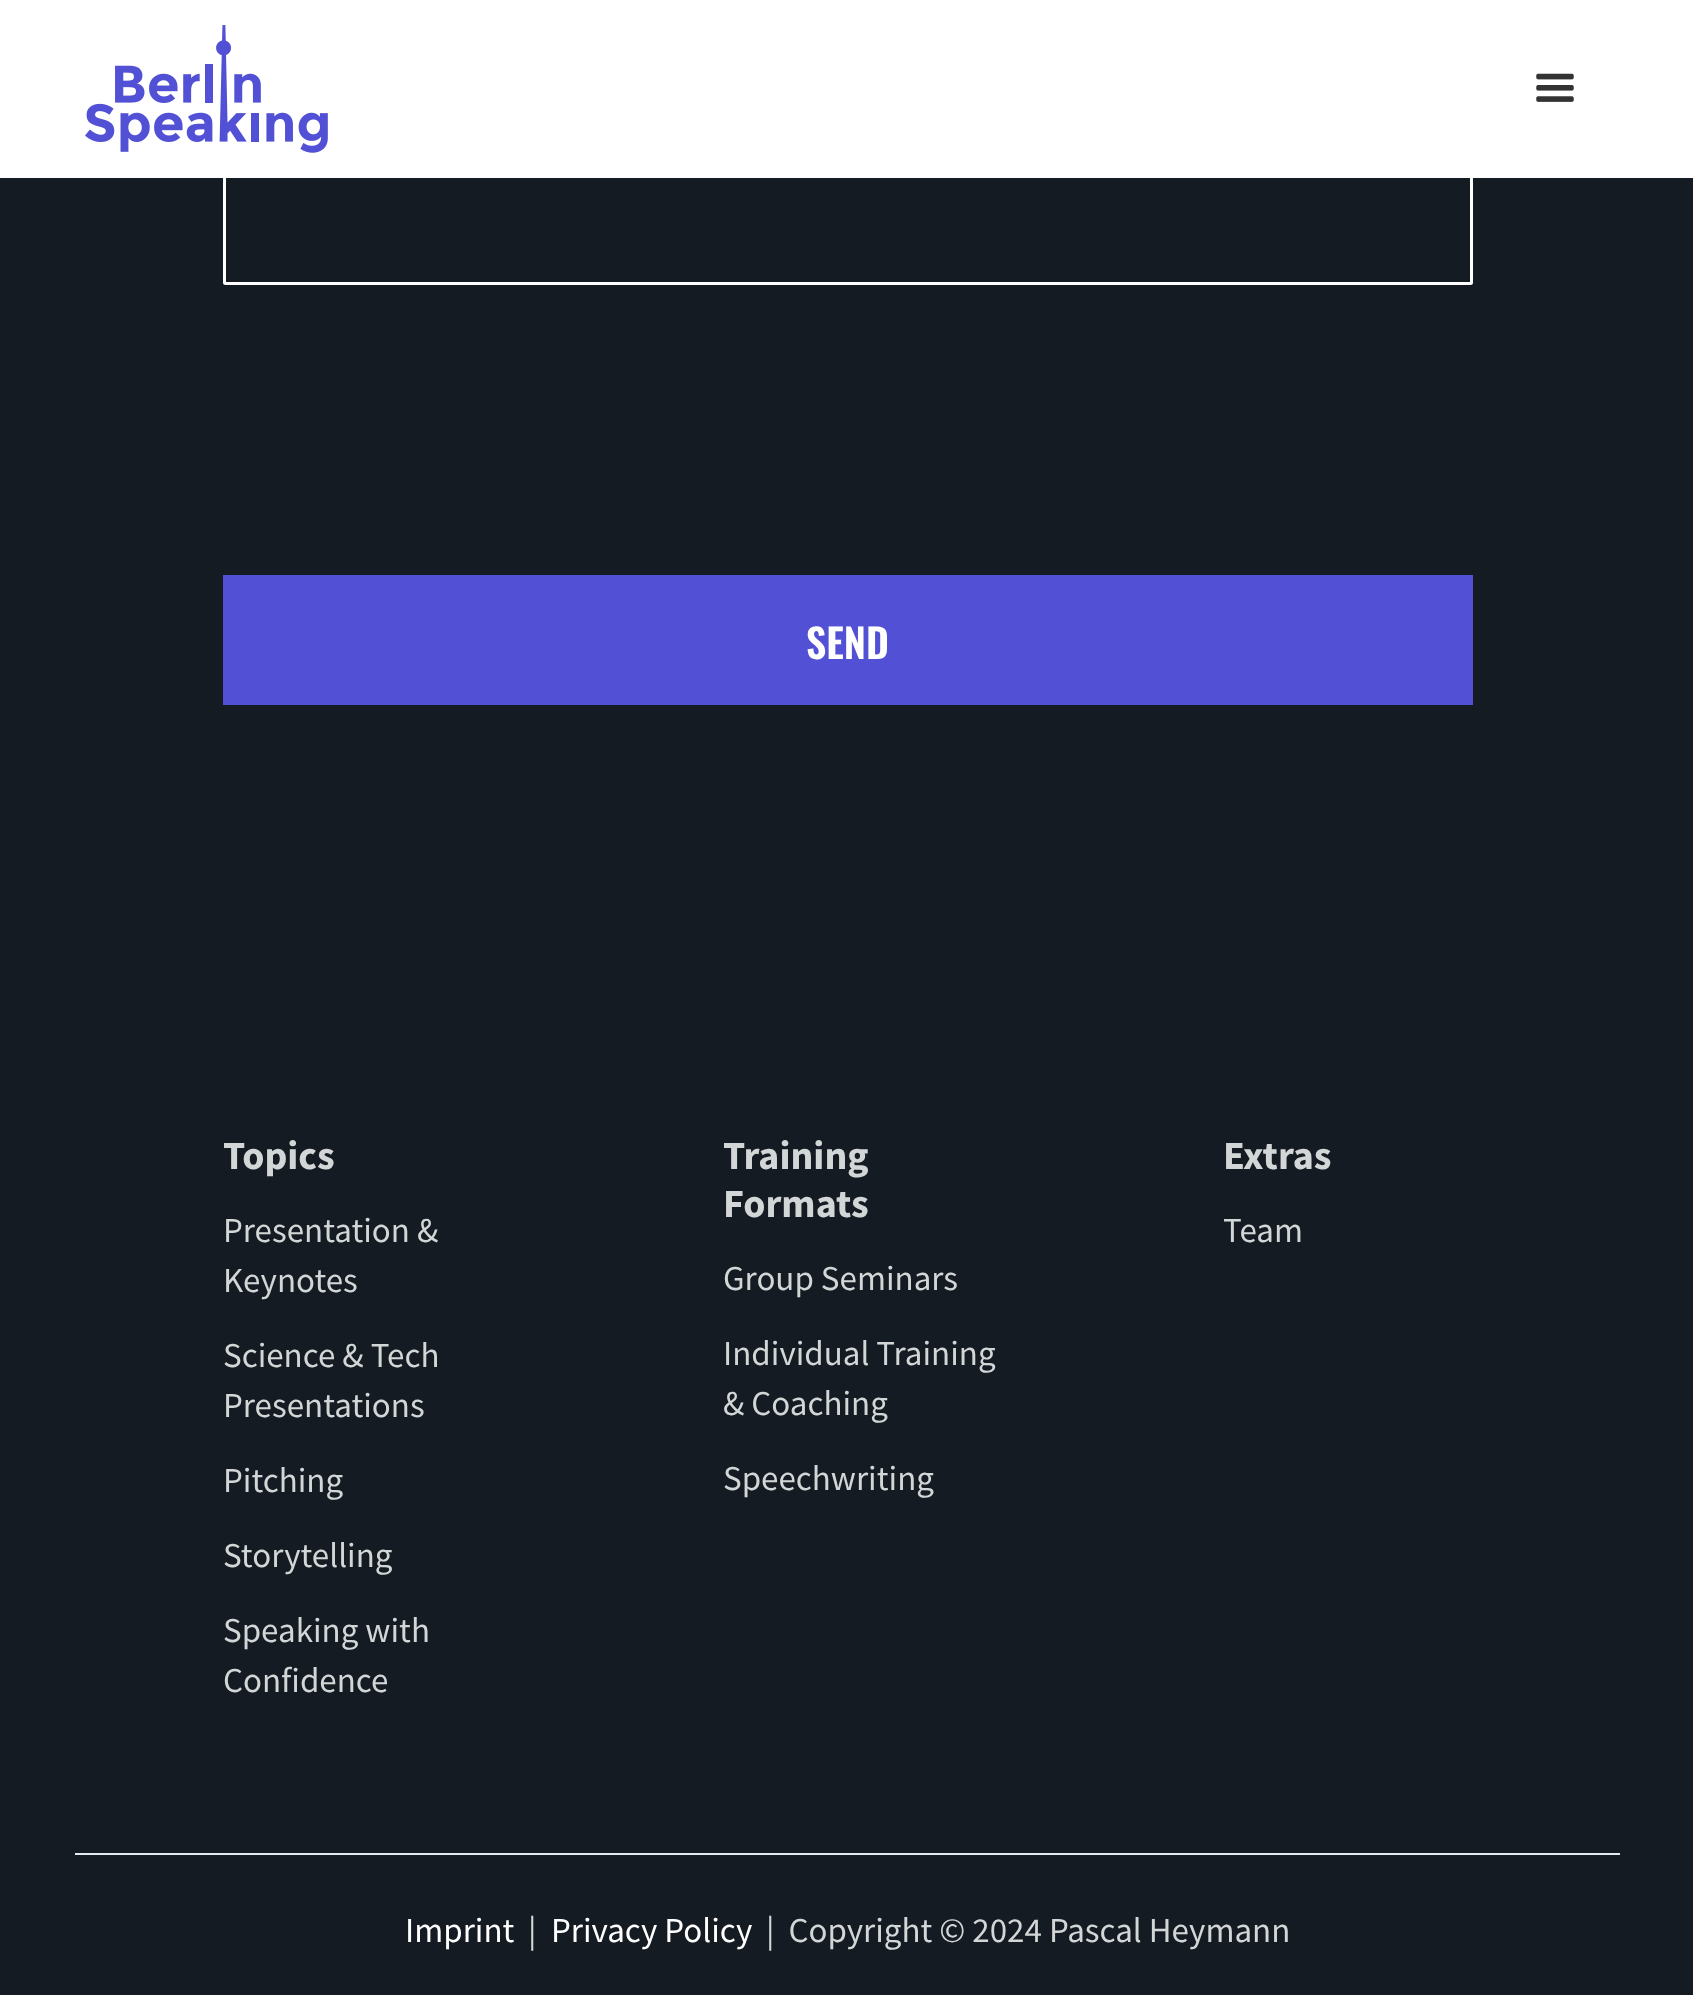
<!DOCTYPE html>
<meta charset="utf-8">
<style>body { margin: 0 } canvas { display: block }</style>
<canvas id="canvas" width="1693" height="1995"></canvas>
<script type="module">
  const canvas = document.getElementById("canvas");
  const ctx = canvas.getContext("2d");
  ctx.miterLimit = 4;
  ctx.fontKerning = "normal";
  async function loadImage(src) {
    const img = new Image();
    img.src = src;
    await img.decode();
    return img;
  }

  ctx.fillStyle = "#151b22";
  ctx.fillRect(0, 0, 1693, 1995);
  ctx.beginPath();
  ctx.roundRect(224.5, 141.5, 1247, 142, 1);
  ctx.strokeStyle = "#ffffff";
  ctx.lineWidth = 3;
  ctx.stroke();
  ctx.fillStyle = "#ffffff";
  ctx.fillRect(0, 0, 1693, 178);
  ctx.drawImage(await loadImage("img1.png"), 85, 25, 243, 128);
  ctx.drawImage(await loadImage("img2.png"), 1536, 73, 38, 29);
  ctx.fillStyle = "#5251d5";
  ctx.fillRect(223, 575, 1250, 130);
  ctx.font = "600 40px Oswald";
  ctx.fillStyle = "#ffffff";
  ctx.fillText("SEND", 806, 659);
  ctx.font = "bold 40px Source Sans Pro";
  ctx.fillStyle = "#d2d6d6";
  ctx.fillText("Topics", 223, 1169);
  ctx.font = "35px Source Sans Pro";
  ctx.fillText("Presentation &", 223, 1242);
  ctx.fillText("Keynotes", 223, 1292);
  ctx.fillText("Science & Tech", 223, 1367);
  ctx.fillText("Presentations", 223, 1417);
  ctx.fillText("Pitching", 223, 1492);
  ctx.fillText("Storytelling", 223, 1567);
  ctx.fillText("Speaking with", 223, 1642);
  ctx.fillText("Confidence", 223, 1692);
  ctx.font = "bold 40px Source Sans Pro";
  ctx.fillText("Training", 723, 1169);
  ctx.fillText("Formats", 723, 1217);
  ctx.font = "35px Source Sans Pro";
  ctx.fillText("Group Seminars", 723, 1290);
  ctx.fillText("Individual Training", 723, 1365);
  ctx.fillText("& Coaching", 723, 1415);
  ctx.fillText("Speechwriting", 723, 1490);
  ctx.font = "bold 40px Source Sans Pro";
  ctx.fillText("Extras", 1223, 1169);
  ctx.font = "35px Source Sans Pro";
  ctx.fillText("Team", 1223, 1242);
  ctx.fillStyle = "#e4ebf3";
  ctx.fillRect(75, 1853, 1545, 2);
  ctx.fillStyle = "#ffffff";
  ctx.fillText("Imprint", 405, 1942);
  ctx.fillStyle = "#d2d6d6";
  ctx.fillText("|", 528, 1942);
  ctx.fillStyle = "#ffffff";
  ctx.fillText("Privacy Policy", 551, 1942);
  ctx.fillStyle = "#d2d6d6";
  ctx.fillText("|  Copyright © 2024 Pascal Heymann", 766, 1942);
</script>
